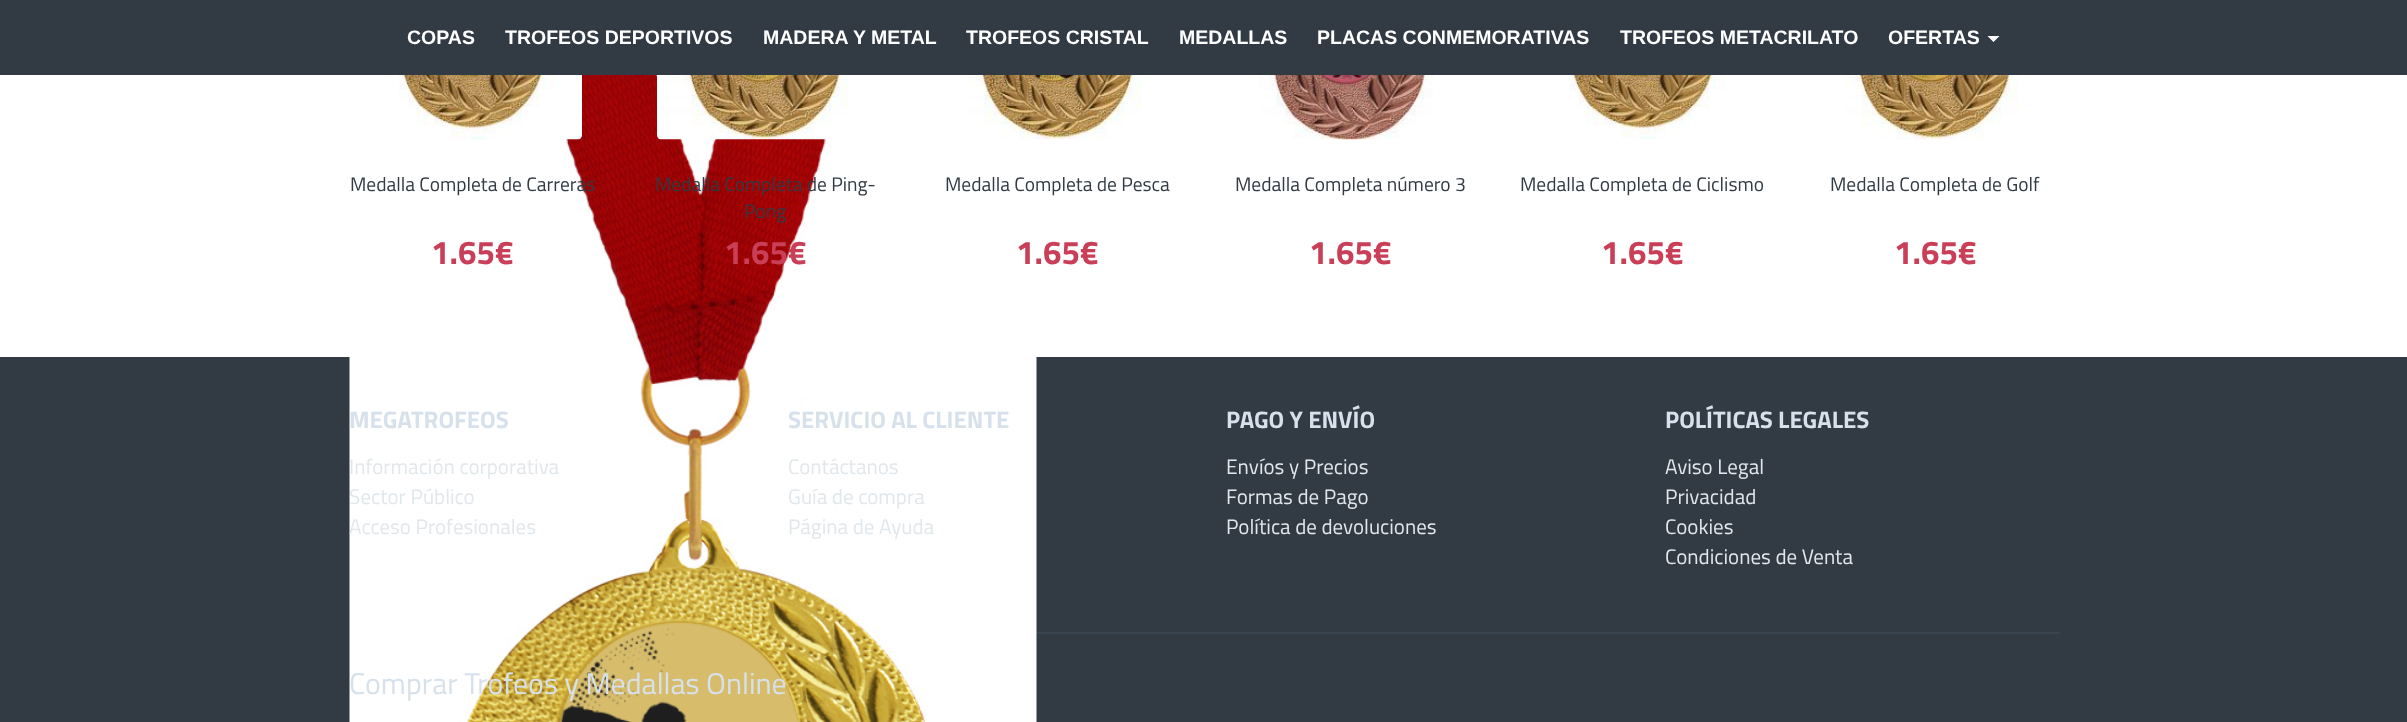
<!DOCTYPE html>
<meta charset="utf-8">
<style>body { margin: 0 } canvas { display: block }</style>
<canvas id="canvas" width="2407" height="722"></canvas>
<script type="module">
  const canvas = document.getElementById("canvas");
  const ctx = canvas.getContext("2d");
  ctx.miterLimit = 4;
  ctx.fontKerning = "normal";
  async function loadImage(src) {
    const img = new Image();
    img.src = src;
    await img.decode();
    return img;
  }

  ctx.fillStyle = "#ffffff";
  ctx.fillRect(0, 0, 2407, 722);
  ctx.fillStyle = "#323a44";
  ctx.fillRect(0, 0, 2407, 75);
  ctx.font = "bold 19.5px Liberation Sans";
  ctx.fillStyle = "#ffffff";
  ctx.fillText("COPAS", 407, 44);
  ctx.fillText("TROFEOS DEPORTIVOS", 505, 44);
  ctx.fillText("MADERA Y METAL", 763, 44);
  ctx.fillText("TROFEOS CRISTAL", 966, 44);
  ctx.fillText("MEDALLAS", 1179, 44);
  ctx.fillText("PLACAS CONMEMORATIVAS", 1317, 44);
  ctx.fillText("TROFEOS METACRILATO", 1620, 44);
  ctx.fillText("OFERTAS", 1888, 44);
  ctx.beginPath();
  ctx.moveTo(1987.5, 36);
  ctx.lineTo(1999.5, 36);
  ctx.lineTo(1993.5, 42);
  ctx.closePath();
  ctx.fill();
  ctx.fillStyle = "#323a44";
  ctx.fillRect(0, 357, 2407, 365);
  ctx.fillStyle = "#394451";
  ctx.fillRect(1036, 632, 1024, 2);
  ctx.drawImage(await loadImage("img1.png"), 349, 75, 688, 647);
  ctx.drawImage(await loadImage("img2.png"), 399, 75, 183, 65);
  ctx.font = "19.5px Titillium Web";
  ctx.fillStyle = "#323a44";
  ctx.fillText("Medalla Completa de Carreras", 350, 191);
  ctx.font = "bold 33px Titillium Web";
  ctx.fillStyle = "#c93f57";
  ctx.fillText("1.65€", 431, 264);
  ctx.drawImage(await loadImage("img3.png"), 657, 75, 192, 65);
  ctx.font = "19.5px Titillium Web";
  ctx.fillStyle = "#323a44";
  ctx.fillText("Medalla Completa de Ping-", 655, 191);
  ctx.fillText("Pong", 744, 218);
  ctx.font = "bold 33px Titillium Web";
  ctx.fillStyle = "#c93f57";
  ctx.fillText("1.65€", 724, 264);
  ctx.drawImage(await loadImage("img4.png"), 967, 75, 174, 65);
  ctx.font = "19.5px Titillium Web";
  ctx.fillStyle = "#323a44";
  ctx.fillText("Medalla Completa de Pesca", 945, 191);
  ctx.font = "bold 33px Titillium Web";
  ctx.fillStyle = "#c93f57";
  ctx.fillText("1.65€", 1016, 264);
  ctx.drawImage(await loadImage("img5.png"), 1259, 75, 174, 65);
  ctx.font = "19.5px Titillium Web";
  ctx.fillStyle = "#323a44";
  ctx.fillText("Medalla Completa número 3", 1235, 191);
  ctx.font = "bold 33px Titillium Web";
  ctx.fillStyle = "#c93f57";
  ctx.fillText("1.65€", 1309, 264);
  ctx.drawImage(await loadImage("img6.png"), 1569, 75, 157, 64);
  ctx.font = "19.5px Titillium Web";
  ctx.fillStyle = "#323a44";
  ctx.fillText("Medalla Completa de Ciclismo", 1520, 191);
  ctx.font = "bold 33px Titillium Web";
  ctx.fillStyle = "#c93f57";
  ctx.fillText("1.65€", 1601, 264);
  ctx.drawImage(await loadImage("img7.png"), 1844, 75, 175, 65);
  ctx.font = "19.5px Titillium Web";
  ctx.fillStyle = "#323a44";
  ctx.fillText("Medalla Completa de Golf", 1830, 191);
  ctx.font = "bold 33px Titillium Web";
  ctx.fillStyle = "#c93f57";
  ctx.fillText("1.65€", 1894, 264);
  ctx.font = "bold 24px Titillium Web";
  ctx.fillStyle = "#d7e1ec";
  ctx.fillText("MEGATROFEOS", 349, 428);
  ctx.font = "21px Titillium Web";
  ctx.fillStyle = "#e1e7eb";
  ctx.fillText("Información corporativa", 349, 474);
  ctx.fillText("Sector Público", 349, 504);
  ctx.fillText("Acceso Profesionales", 349, 534);
  ctx.font = "bold 24px Titillium Web";
  ctx.fillStyle = "#d7e1ec";
  ctx.fillText("SERVICIO AL CLIENTE", 788, 428);
  ctx.font = "21px Titillium Web";
  ctx.fillStyle = "#e1e7eb";
  ctx.fillText("Contáctanos", 788, 474);
  ctx.fillText("Guía de compra", 788, 504);
  ctx.fillText("Página de Ayuda", 788, 534);
  ctx.font = "bold 24px Titillium Web";
  ctx.fillStyle = "#d7e1ec";
  ctx.fillText("PAGO Y ENVÍO", 1226, 428);
  ctx.font = "21px Titillium Web";
  ctx.fillStyle = "#e1e7eb";
  ctx.fillText("Envíos y Precios", 1226, 474);
  ctx.fillText("Formas de Pago", 1226, 504);
  ctx.fillText("Política de devoluciones", 1226, 534);
  ctx.font = "bold 24px Titillium Web";
  ctx.fillStyle = "#d7e1ec";
  ctx.fillText("POLÍTICAS LEGALES", 1665, 428);
  ctx.font = "21px Titillium Web";
  ctx.fillStyle = "#e1e7eb";
  ctx.fillText("Aviso Legal", 1665, 474);
  ctx.fillText("Privacidad", 1665, 504);
  ctx.fillText("Cookies", 1665, 534);
  ctx.fillText("Condiciones de Venta", 1665, 564);
  ctx.font = "30px Titillium Web";
  ctx.fillStyle = "#d7e1ec";
  ctx.fillText("Comprar Trofeos y Medallas Online", 349, 694);
</script>
